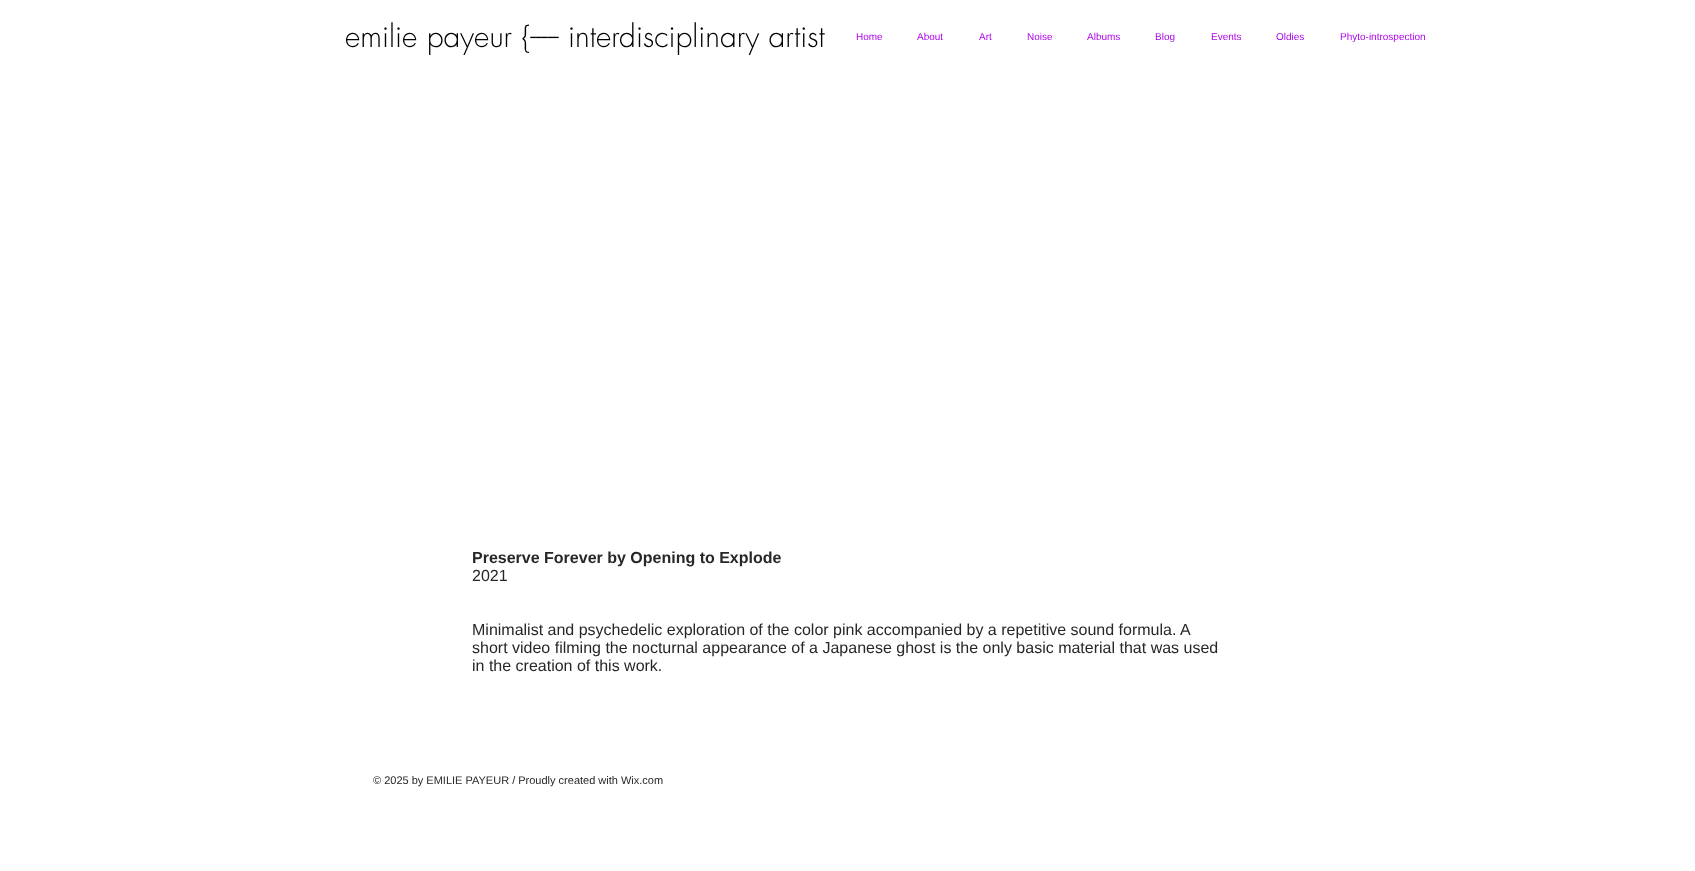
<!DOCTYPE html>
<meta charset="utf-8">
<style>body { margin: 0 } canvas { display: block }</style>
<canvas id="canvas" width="1695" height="871"></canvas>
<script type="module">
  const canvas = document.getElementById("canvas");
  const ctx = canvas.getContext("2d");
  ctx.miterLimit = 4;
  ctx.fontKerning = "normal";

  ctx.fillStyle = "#ffffff";
  ctx.fillRect(0, 0, 1695, 871);
  ctx.font = "300 30px futura";
  ctx.fillStyle = "#000000";
  ctx.fillText("emilie payeur {----- interdisciplinary artist", 345, 47);
  ctx.font = "10px Liberation Sans";
  ctx.fillStyle = "#ad04ea";
  ctx.fillText("Home", 856, 40);
  ctx.fillText("About", 917, 40);
  ctx.fillText("Art", 979, 40);
  ctx.fillText("Noise", 1027, 40);
  ctx.fillText("Albums", 1087, 40);
  ctx.fillText("Blog", 1155, 40);
  ctx.fillText("Events", 1211, 40);
  ctx.fillText("Oldies", 1276, 40);
  ctx.fillText("Phyto-introspection", 1340, 40);
  ctx.font = "bold 16px Liberation Sans";
  ctx.fillStyle = "#272727";
  ctx.fillText("Preserve Forever by Opening to Explode", 472, 563);
  ctx.font = "16px Liberation Sans";
  ctx.fillText("2021", 472, 581);
  ctx.fillText("Minimalist and psychedelic exploration of the color pink accompanied by a repetitive sound formula. A", 472, 635);
  ctx.fillText("short video filming the nocturnal appearance of a Japanese ghost is the only basic material that was used", 472, 653);
  ctx.fillText("in the creation of this work.", 472, 671);
  ctx.font = "11px Liberation Sans";
  ctx.fillText("© 2025 by EMILIE PAYEUR / Proudly created with Wix.com", 373, 784);
</script>
